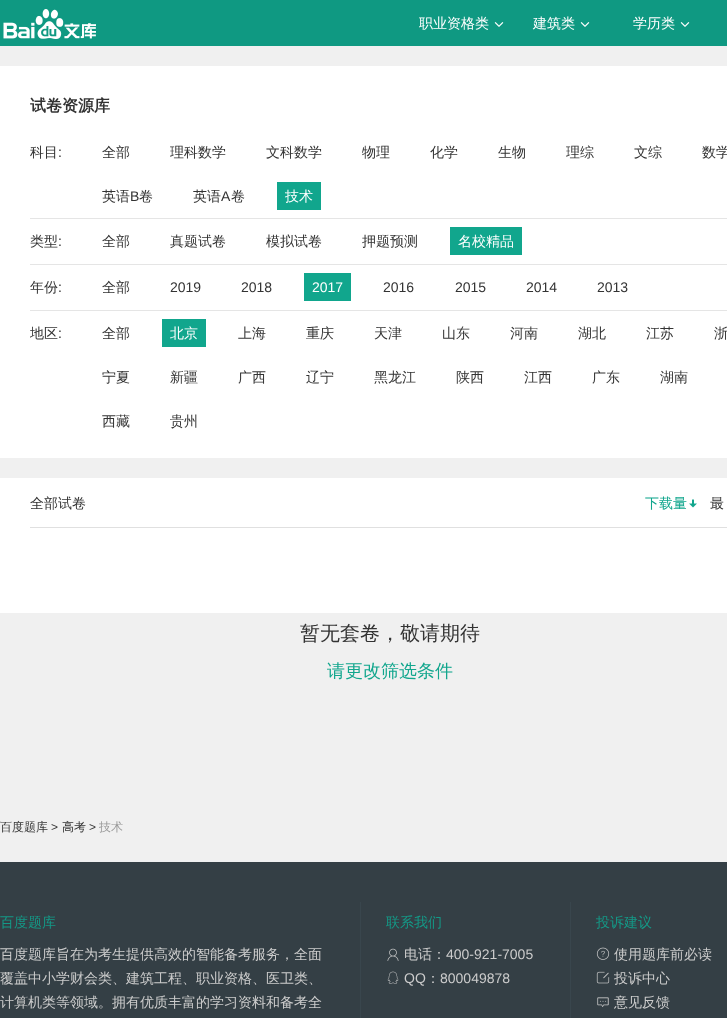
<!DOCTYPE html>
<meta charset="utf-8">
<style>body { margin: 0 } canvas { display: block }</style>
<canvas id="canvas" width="727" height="1018"></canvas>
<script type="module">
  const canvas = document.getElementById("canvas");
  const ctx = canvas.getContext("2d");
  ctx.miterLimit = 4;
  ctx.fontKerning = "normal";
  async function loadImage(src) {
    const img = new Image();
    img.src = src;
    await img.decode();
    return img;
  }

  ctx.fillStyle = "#f0f0f0";
  ctx.fillRect(0, 0, 727, 1018);
  ctx.fillStyle = "#0f9982";
  ctx.fillRect(0, 0, 727, 46);
  ctx.drawImage(await loadImage("img1.png"), 3, 9, 93, 30);
  ctx.font = "500 14px WenQuanYi Zen Hei";
  ctx.fillStyle = "#ffffff";
  ctx.fillText("职业资格类", 419, 28);
  ctx.drawImage(await loadImage("img2.png"), 494, 22, 10, 5);
  ctx.fillText("建筑类", 533, 28);
  ctx.drawImage(await loadImage("img2.png"), 580, 22, 10, 5);
  ctx.fillText("学历类", 633, 28);
  ctx.drawImage(await loadImage("img2.png"), 680, 22, 10, 5);
  ctx.fillRect(0, 66, 727, 392);
  ctx.font = "bold 16px WenQuanYi Zen Hei";
  ctx.fillStyle = "#333333";
  ctx.fillText("试卷资源库", 30, 111);
  ctx.fillStyle = "#e5e5e5";
  ctx.fillRect(30, 218, 697, 1);
  ctx.font = "500 14px WenQuanYi Zen Hei";
  ctx.fillStyle = "#333333";
  ctx.fillText("科目", 30, 157);
  ctx.font = "14px Liberation Sans";
  ctx.fillText(":", 58, 157);
  ctx.font = "500 14px WenQuanYi Zen Hei";
  ctx.fillText("全部", 102, 157);
  ctx.fillText("理科数学", 170, 157);
  ctx.fillText("文科数学", 266, 157);
  ctx.fillText("物理", 362, 157);
  ctx.fillText("化学", 430, 157);
  ctx.fillText("生物", 498, 157);
  ctx.fillText("理综", 566, 157);
  ctx.fillText("文综", 634, 157);
  ctx.fillText("数学", 702, 157);
  ctx.fillText("英语", 102, 201);
  ctx.font = "14px Liberation Sans";
  ctx.fillText("B", 130, 201);
  ctx.font = "500 14px WenQuanYi Zen Hei";
  ctx.fillText("卷", 139, 201);
  ctx.fillText("英语", 193, 201);
  ctx.font = "14px Liberation Sans";
  ctx.fillText("A", 221, 201);
  ctx.font = "500 14px WenQuanYi Zen Hei";
  ctx.fillText("卷", 231, 201);
  ctx.fillStyle = "#11a68d";
  ctx.fillRect(277, 182, 44, 28);
  ctx.fillStyle = "#ffffff";
  ctx.fillText("技术", 285, 201);
  ctx.fillStyle = "#e5e5e5";
  ctx.fillRect(30, 264, 697, 1);
  ctx.fillStyle = "#333333";
  ctx.fillText("类型", 30, 246);
  ctx.font = "14px Liberation Sans";
  ctx.fillText(":", 58, 246);
  ctx.font = "500 14px WenQuanYi Zen Hei";
  ctx.fillText("全部", 102, 246);
  ctx.fillText("真题试卷", 170, 246);
  ctx.fillText("模拟试卷", 266, 246);
  ctx.fillText("押题预测", 362, 246);
  ctx.fillStyle = "#11a68d";
  ctx.fillRect(450, 227, 72, 28);
  ctx.fillStyle = "#ffffff";
  ctx.fillText("名校精品", 458, 246);
  ctx.fillStyle = "#e5e5e5";
  ctx.fillRect(30, 310, 697, 1);
  ctx.fillStyle = "#333333";
  ctx.fillText("年份", 30, 292);
  ctx.font = "14px Liberation Sans";
  ctx.fillText(":", 58, 292);
  ctx.font = "500 14px WenQuanYi Zen Hei";
  ctx.fillText("全部", 102, 292);
  ctx.font = "14px Liberation Sans";
  ctx.fillText("2019", 170, 292);
  ctx.fillText("2018", 241, 292);
  ctx.fillStyle = "#11a68d";
  ctx.fillRect(304, 273, 47, 28);
  ctx.fillStyle = "#ffffff";
  ctx.fillText("2017", 312, 292);
  ctx.fillStyle = "#333333";
  ctx.fillText("2016", 383, 292);
  ctx.fillText("2015", 455, 292);
  ctx.fillText("2014", 526, 292);
  ctx.fillText("2013", 597, 292);
  ctx.font = "500 14px WenQuanYi Zen Hei";
  ctx.fillText("地区", 30, 338);
  ctx.font = "14px Liberation Sans";
  ctx.fillText(":", 58, 338);
  ctx.font = "500 14px WenQuanYi Zen Hei";
  ctx.fillText("全部", 102, 338);
  ctx.fillStyle = "#11a68d";
  ctx.fillRect(162, 319, 44, 28);
  ctx.fillStyle = "#ffffff";
  ctx.fillText("北京", 170, 338);
  ctx.fillStyle = "#333333";
  ctx.fillText("上海", 238, 338);
  ctx.fillText("重庆", 306, 338);
  ctx.fillText("天津", 374, 338);
  ctx.fillText("山东", 442, 338);
  ctx.fillText("河南", 510, 338);
  ctx.fillText("湖北", 578, 338);
  ctx.fillText("江苏", 646, 338);
  ctx.fillText("浙", 714, 338);
  ctx.fillText("宁夏", 102, 382);
  ctx.fillText("新疆", 170, 382);
  ctx.fillText("广西", 238, 382);
  ctx.fillText("辽宁", 306, 382);
  ctx.fillText("黑龙江", 374, 382);
  ctx.fillText("陕西", 456, 382);
  ctx.fillText("江西", 524, 382);
  ctx.fillText("广东", 592, 382);
  ctx.fillText("湖南", 660, 382);
  ctx.fillText("西藏", 102, 426);
  ctx.fillText("贵州", 170, 426);
  ctx.fillStyle = "#ffffff";
  ctx.fillRect(0, 478, 727, 135);
  ctx.fillStyle = "#e0e0e0";
  ctx.fillRect(30, 527, 697, 1);
  ctx.fillStyle = "#333333";
  ctx.fillText("全部试卷", 30, 508);
  ctx.fillStyle = "#11a68d";
  ctx.fillText("下载量", 645, 508);
  ctx.drawImage(await loadImage("img3.png"), 689, 499, 8, 9);
  ctx.fillStyle = "#333333";
  ctx.fillText("最", 710, 508);
  ctx.font = "500 20px WenQuanYi Zen Hei";
  ctx.fillText("暂无套卷，敬请期待", 300, 640);
  ctx.font = "500 18px WenQuanYi Zen Hei";
  ctx.fillStyle = "#11a68d";
  ctx.fillText("请更改筛选条件", 327, 677);
  ctx.font = "500 12px WenQuanYi Zen Hei";
  ctx.fillStyle = "#333333";
  ctx.fillText("百度题库", 0, 831);
  ctx.font = "12px Liberation Sans";
  ctx.fillText(">", 51, 831);
  ctx.font = "500 12px WenQuanYi Zen Hei";
  ctx.fillText("高考", 62, 831);
  ctx.font = "12px Liberation Sans";
  ctx.fillText(">", 89, 831);
  ctx.font = "500 12px WenQuanYi Zen Hei";
  ctx.fillStyle = "#999999";
  ctx.fillText("技术", 99, 831);
  ctx.fillStyle = "#343f45";
  ctx.fillRect(0, 862, 727, 156);
  ctx.fillStyle = "#39464d";
  ctx.fillRect(360, 902, 1, 116);
  ctx.font = "500 14px WenQuanYi Zen Hei";
  ctx.fillStyle = "#149987";
  ctx.fillText("百度题库", 0, 927);
  ctx.fillStyle = "#cccccc";
  ctx.fillText("百度题库旨在为考生提供高效的智能备考服务，全面", 0, 959);
  ctx.fillText("覆盖中小学财会类、建筑工程、职业资格、医卫类、", 0, 983);
  ctx.fillText("计算机类等领域。拥有优质丰富的学习资料和备考全", 0, 1007);
  ctx.fillStyle = "#39464d";
  ctx.fillRect(570, 902, 1, 116);
  ctx.fillStyle = "#149987";
  ctx.fillText("联系我们", 386, 927);
  ctx.drawImage(await loadImage("img4.png"), 387, 948, 12, 13);
  ctx.fillStyle = "#cccccc";
  ctx.fillText("电话：", 404, 959);
  ctx.font = "14px Liberation Sans";
  ctx.fillText("400-921-7005", 446, 959);
  ctx.drawImage(await loadImage("img5.png"), 387, 971, 12, 13);
  ctx.fillText("QQ", 404, 983);
  ctx.font = "500 14px WenQuanYi Zen Hei";
  ctx.fillText("：", 426, 983);
  ctx.font = "14px Liberation Sans";
  ctx.fillText("800049878", 440, 983);
  ctx.font = "500 14px WenQuanYi Zen Hei";
  ctx.fillStyle = "#149987";
  ctx.fillText("投诉建议", 596, 927);
  ctx.drawImage(await loadImage("img6.png"), 596, 947, 14, 13);
  ctx.fillStyle = "#cccccc";
  ctx.fillText("使用题库前必读", 614, 959);
  ctx.drawImage(await loadImage("img7.png"), 596, 971, 14, 13);
  ctx.fillText("投诉中心", 614, 983);
  ctx.drawImage(await loadImage("img8.png"), 597, 997, 12, 10);
  ctx.fillText("意见反馈", 614, 1007);
</script>
